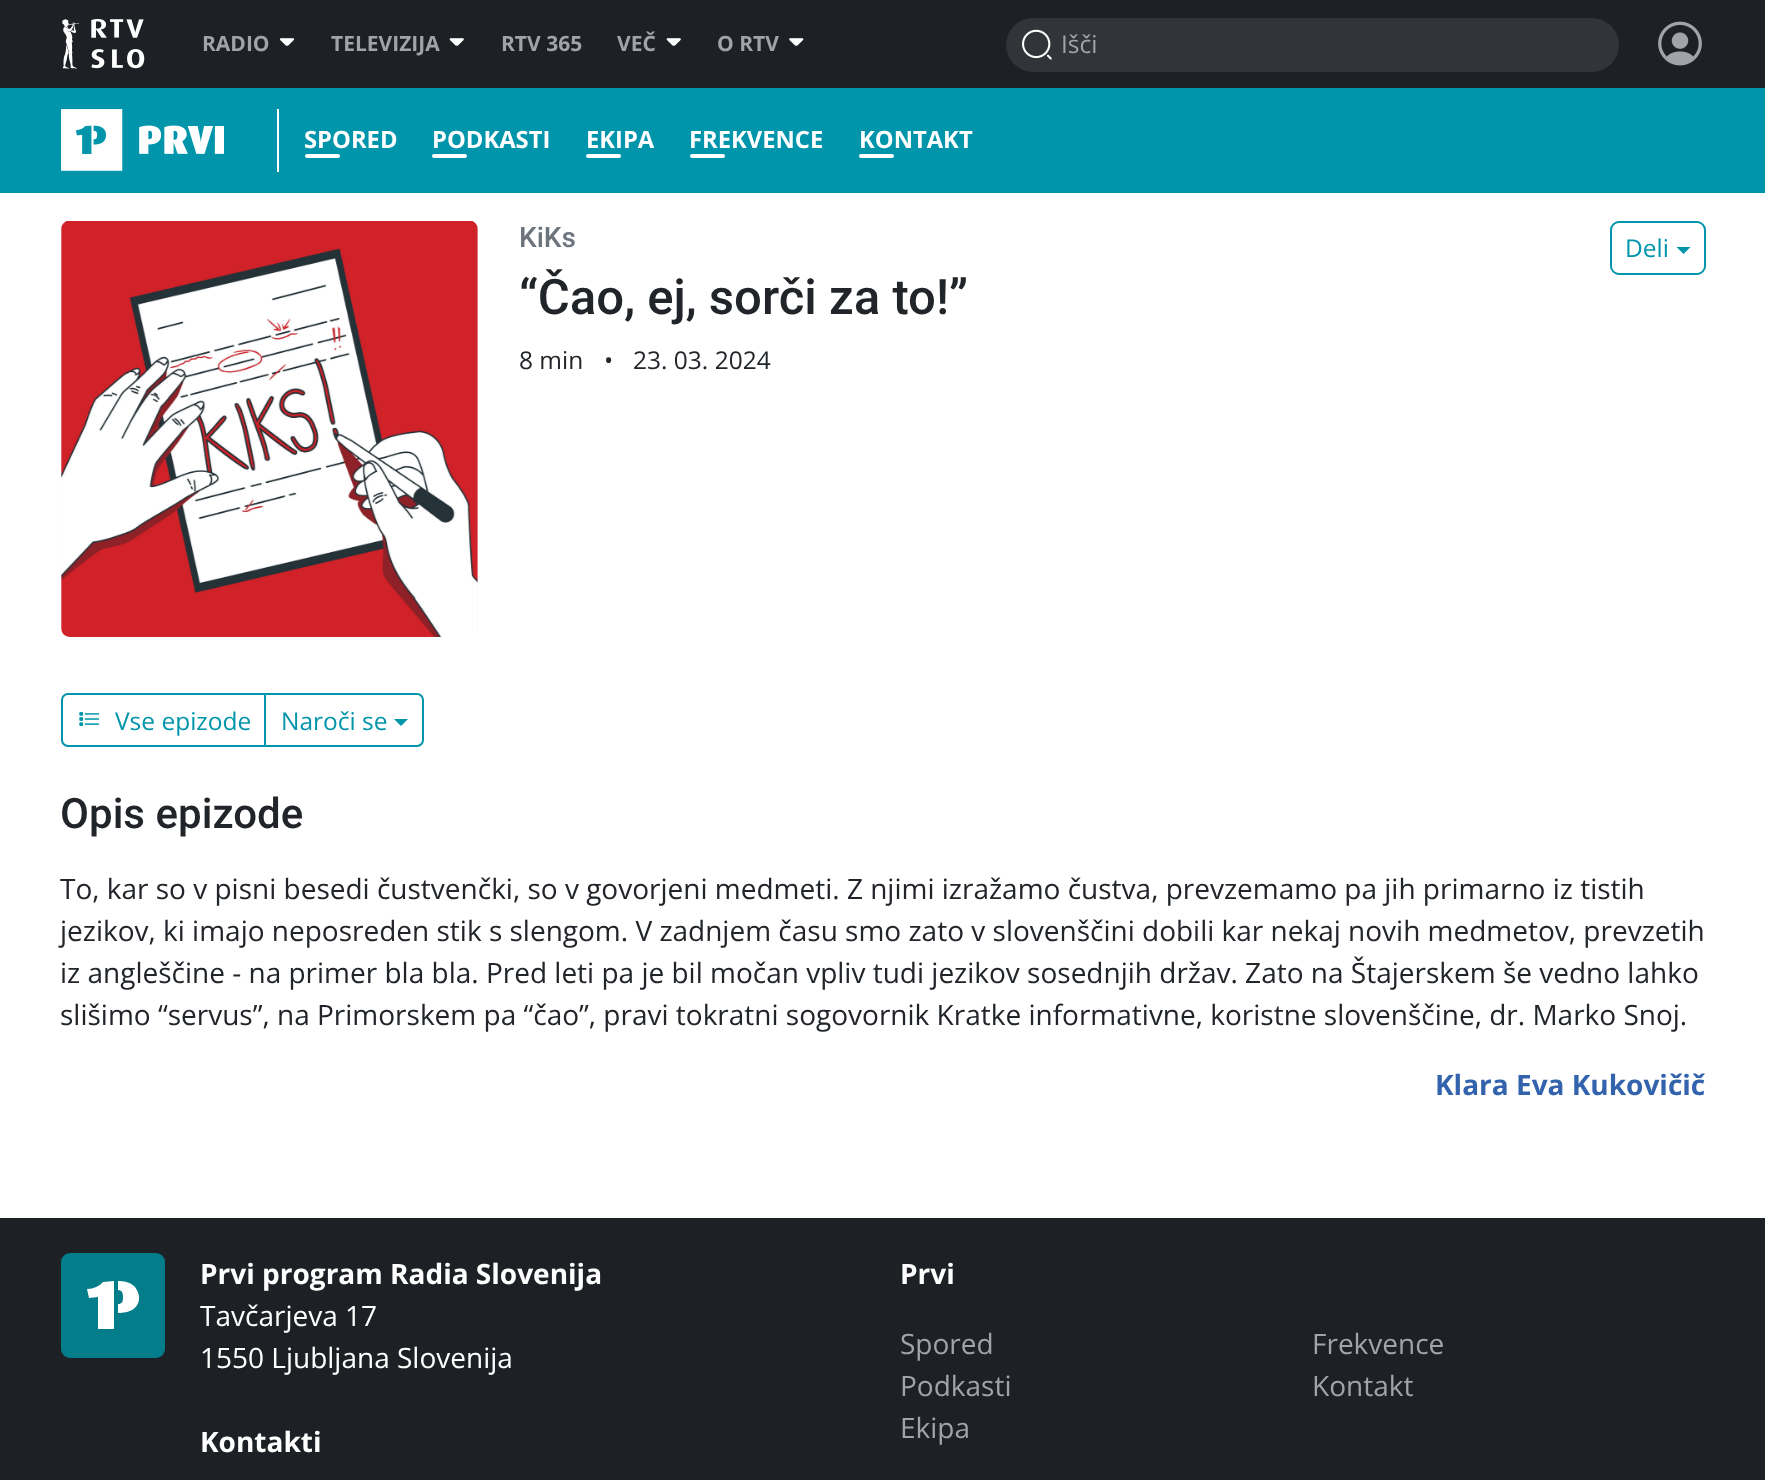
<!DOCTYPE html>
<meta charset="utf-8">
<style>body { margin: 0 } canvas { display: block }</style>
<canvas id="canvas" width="1765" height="1480"></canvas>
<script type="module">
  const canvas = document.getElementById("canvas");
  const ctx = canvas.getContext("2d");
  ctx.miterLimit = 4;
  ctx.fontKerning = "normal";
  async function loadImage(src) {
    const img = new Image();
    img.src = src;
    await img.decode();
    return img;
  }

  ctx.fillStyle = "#ffffff";
  ctx.fillRect(0, 0, 1765, 1480);
  ctx.fillStyle = "#1d2125";
  ctx.fillRect(0, 0, 1765, 88);
  ctx.drawImage(await loadImage("img1.png"), 62, 19, 83, 50);
  ctx.font = "bold 21px Open Sans";
  ctx.fillStyle = "#a0a4a9";
  ctx.fillText("RADIO", 202, 51);
  ctx.drawImage(await loadImage("img2.png"), 279, 38, 16, 8);
  ctx.fillText("TELEVIZIJA", 331, 51);
  ctx.drawImage(await loadImage("img3.png"), 449, 38, 15, 8);
  ctx.fillText("RTV 365", 501, 51);
  ctx.fillText("VEČ", 617, 51);
  ctx.drawImage(await loadImage("img3.png"), 666, 38, 15, 8);
  ctx.fillText("O RTV", 717, 51);
  ctx.drawImage(await loadImage("img4.png"), 789, 38, 15, 8);
  ctx.fillStyle = "#31353a";
  ctx.beginPath();
  ctx.roundRect(1006, 18, 613, 54, 27);
  ctx.fill();
  ctx.drawImage(await loadImage("img5.png"), 1022, 29, 30, 31);
  ctx.font = "24.5px Open Sans";
  ctx.fillStyle = "#a0a4a9";
  ctx.fillText("Išči", 1061, 53);
  ctx.drawImage(await loadImage("img6.png"), 1658, 21, 44, 45);
  ctx.fillStyle = "#0095aa";
  ctx.fillRect(0, 88, 1765, 105);
  ctx.fillStyle = "#ffffff";
  ctx.fillRect(277, 109, 2, 63);
  ctx.drawImage(await loadImage("img7.png"), 61, 109, 163, 62);
  ctx.font = "bold 23.75px Open Sans";
  ctx.fillText("SPORED", 304, 148);
  ctx.beginPath();
  ctx.roundRect(305, 154, 35, 4, 2);
  ctx.fill();
  ctx.fillText("PODKASTI", 432, 148);
  ctx.beginPath();
  ctx.roundRect(432, 154, 35, 4, 2);
  ctx.fill();
  ctx.fillText("EKIPA", 586, 148);
  ctx.beginPath();
  ctx.roundRect(586, 154, 35, 4, 2);
  ctx.fill();
  ctx.fillText("FREKVENCE", 689, 148);
  ctx.beginPath();
  ctx.roundRect(690, 154, 35, 4, 2);
  ctx.fill();
  ctx.fillText("KONTAKT", 859, 148);
  ctx.beginPath();
  ctx.roundRect(859, 154, 35, 4, 2);
  ctx.fill();
  ctx.fillStyle = "#f3f3f3";
  ctx.beginPath();
  ctx.roundRect(61, 221, 417, 416, 9);
  ctx.fill();
  ctx.drawImage(await loadImage("img8.png"), 61, 221, 417, 416);
  ctx.font = "500 28px Roboto";
  ctx.fillStyle = "#6c757d";
  ctx.fillText("KiKs", 519, 247);
  ctx.beginPath();
  ctx.roundRect(1611, 222, 94, 52, 8);
  ctx.strokeStyle = "#0095aa";
  ctx.lineWidth = 2;
  ctx.stroke();
  ctx.font = "24.5px Open Sans";
  ctx.fillStyle = "#0095aa";
  ctx.fillText("Deli", 1625, 257);
  ctx.beginPath();
  ctx.moveTo(1676.5, 247);
  ctx.lineTo(1690.5, 247);
  ctx.lineTo(1683.5, 254);
  ctx.closePath();
  ctx.fill();
  ctx.font = "500 49px Roboto";
  ctx.fillStyle = "#212529";
  ctx.fillText("“Čao, ej, sorči za to!”", 519, 314);
  ctx.font = "24.5px Open Sans";
  ctx.fillText("8 min", 519, 369);
  ctx.fillText("•", 604, 369);
  ctx.fillText("23. 03. 2024", 633, 369);
  ctx.beginPath();
  ctx.roundRect(62, 694, 203, 52, [6, 0, 0, 6]);
  ctx.stroke();
  ctx.drawImage(await loadImage("img9.png"), 79, 712, 21, 15);
  ctx.fillStyle = "#0095aa";
  ctx.fillText("Vse epizode", 115, 730);
  ctx.beginPath();
  ctx.roundRect(265, 694, 158, 52, [0, 6, 6, 0]);
  ctx.stroke();
  ctx.fillText("Naroči se", 281, 730);
  ctx.beginPath();
  ctx.moveTo(394, 719);
  ctx.lineTo(408, 719);
  ctx.lineTo(401, 726);
  ctx.closePath();
  ctx.fill();
  ctx.font = "500 42px Roboto";
  ctx.fillStyle = "#212529";
  ctx.fillText("Opis epizode", 60, 828);
  ctx.font = "28px Open Sans";
  ctx.fillText("To, kar so v pisni besedi čustvenčki, so v govorjeni medmeti. Z njimi izražamo čustva, prevzemamo pa jih primarno iz tistih", 60, 899);
  ctx.fillText("jezikov, ki imajo neposreden stik s slengom. V zadnjem času smo zato v slovenščini dobili kar nekaj novih medmetov, prevzetih", 60, 941);
  ctx.fillText("iz angleščine - na primer bla bla. Pred leti pa je bil močan vpliv tudi jezikov sosednjih držav. Zato na Štajerskem še vedno lahko", 60, 983);
  ctx.fillText("slišimo “servus”, na Primorskem pa “čao”, pravi tokratni sogovornik Kratke informativne, koristne slovenščine, dr. Marko Snoj.", 60, 1025);
  ctx.font = "bold 28px Open Sans";
  ctx.fillStyle = "#3363ad";
  ctx.fillText("Klara Eva Kukovičič", 1435, 1095);
  ctx.fillStyle = "#1d2125";
  ctx.fillRect(0, 1218, 1765, 262);
  ctx.fillStyle = "#047d8b";
  ctx.beginPath();
  ctx.roundRect(61, 1253, 104, 105, 9);
  ctx.fill();
  ctx.fillStyle = "#ffffff";
  ctx.beginPath();
  ctx.moveTo(98, 1286);
  ctx.bezierCurveTo(95, 1288, 91, 1289, 87, 1289);
  ctx.lineTo(89, 1298);
  ctx.lineTo(98, 1297);
  ctx.lineTo(98, 1329);
  ctx.lineTo(114, 1329);
  ctx.lineTo(114, 1281);
  ctx.lineTo(103, 1282);
  ctx.bezierCurveTo(101, 1284, 100, 1285, 98, 1286);
  ctx.closePath();
  ctx.moveTo(134, 1286);
  ctx.bezierCurveTo(130, 1282, 123, 1281, 118, 1281);
  ctx.lineTo(118, 1290);
  ctx.bezierCurveTo(122, 1290, 123, 1293, 123, 1297);
  ctx.bezierCurveTo(123, 1302, 122, 1304, 118, 1304);
  ctx.lineTo(118, 1313);
  ctx.bezierCurveTo(129, 1313, 140, 1309, 139, 1296);
  ctx.bezierCurveTo(138, 1292, 137, 1289, 134, 1286);
  ctx.closePath();
  ctx.fill();
  ctx.fillText("Prvi program Radia Slovenija", 200, 1284);
  ctx.font = "28px Open Sans";
  ctx.fillText("Tavčarjeva 17", 200, 1326);
  ctx.fillText("1550 Ljubljana Slovenija", 200, 1368);
  ctx.font = "bold 28px Open Sans";
  ctx.fillText("Kontakti", 200, 1452);
  ctx.fillText("Prvi", 900, 1284);
  ctx.font = "28px Open Sans";
  ctx.fillStyle = "#a0a4a9";
  ctx.fillText("Spored", 900, 1354);
  ctx.fillText("Frekvence", 1312, 1354);
  ctx.fillText("Podkasti", 900, 1396);
  ctx.fillText("Kontakt", 1312, 1396);
  ctx.fillText("Ekipa", 900, 1438);
</script>
